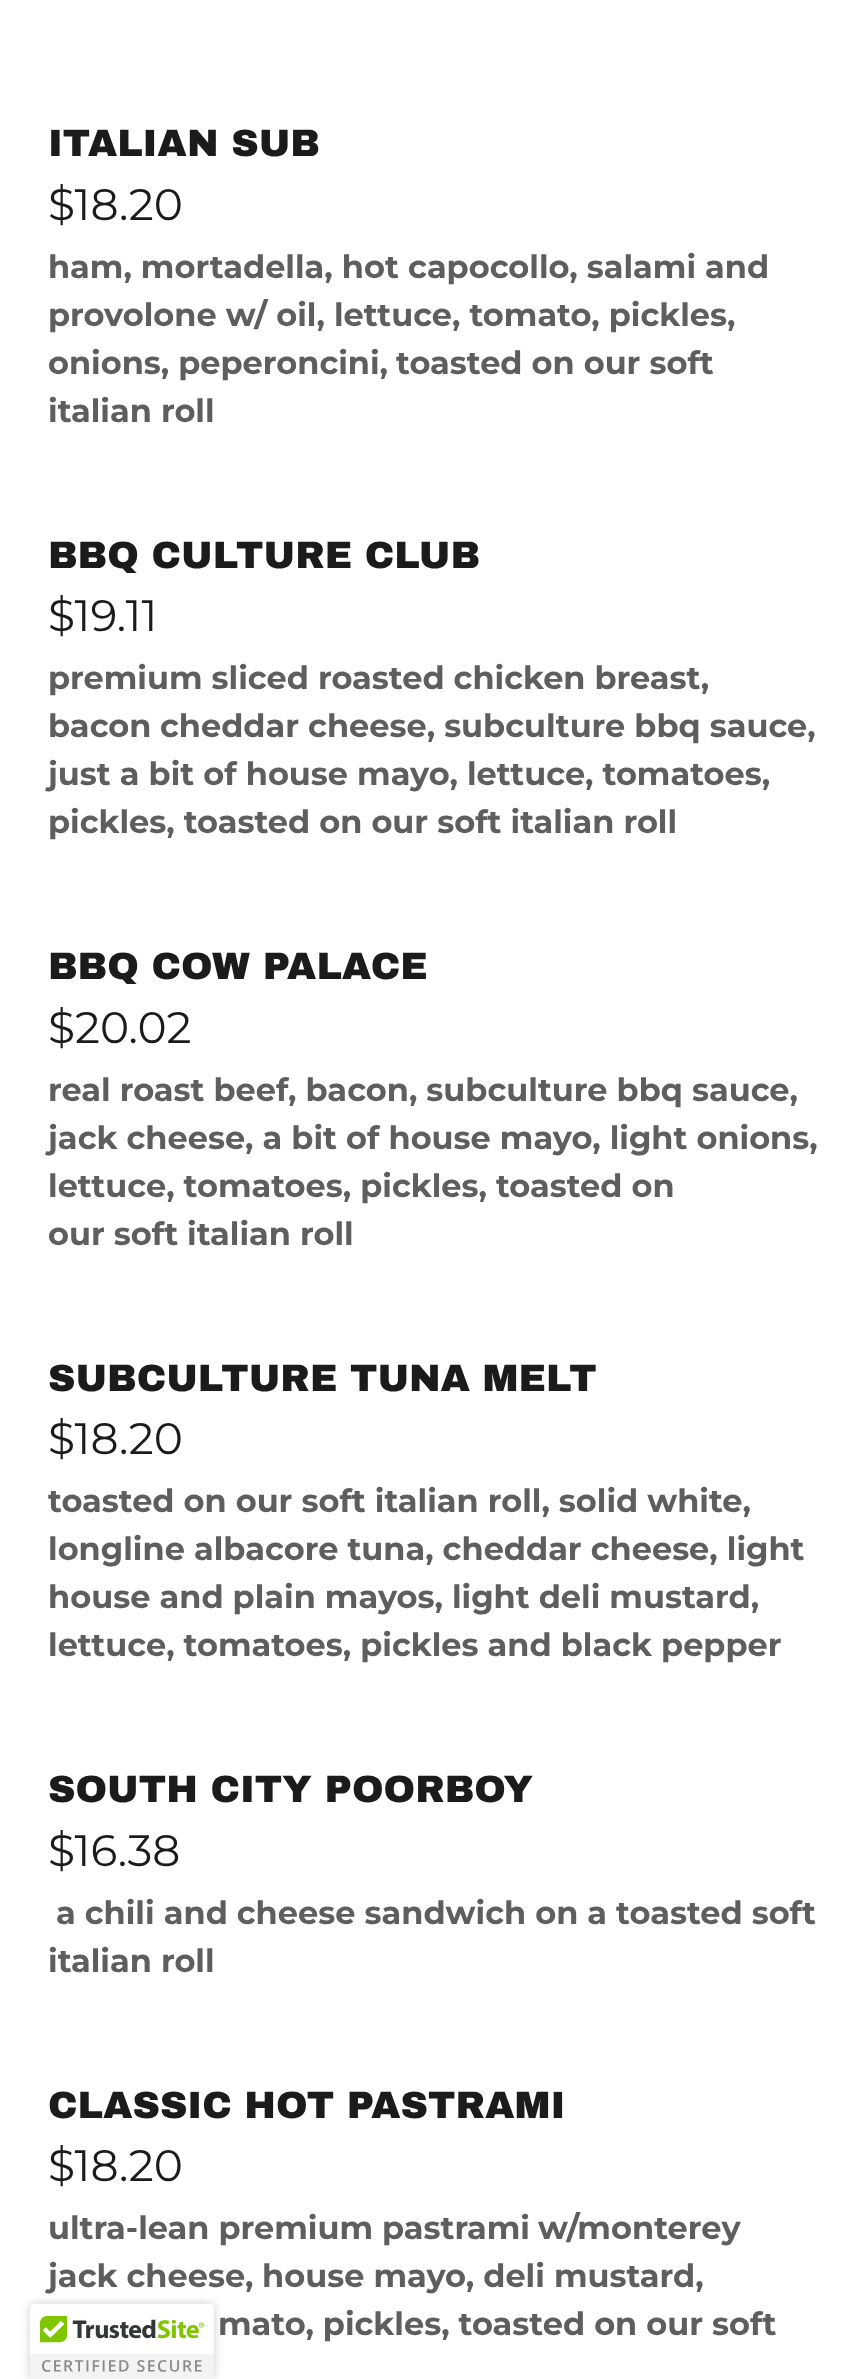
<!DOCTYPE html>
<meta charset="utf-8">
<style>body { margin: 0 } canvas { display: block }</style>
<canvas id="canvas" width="868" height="2379"></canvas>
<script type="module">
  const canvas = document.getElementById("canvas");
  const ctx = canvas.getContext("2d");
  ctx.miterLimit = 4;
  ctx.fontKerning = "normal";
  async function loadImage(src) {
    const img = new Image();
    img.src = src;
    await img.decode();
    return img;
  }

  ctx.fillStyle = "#ffffff";
  ctx.fillRect(0, 0, 868, 2379);
  ctx.font = "900 38px Archivo Black";
  ctx.fillStyle = "#1b1b1b";
  ctx.fillText("ITALIAN SUB", 48, 156);
  ctx.font = "44px Montserrat";
  ctx.fillText("$18.20", 48, 220);
  ctx.font = "bold 32px Montserrat";
  ctx.fillStyle = "#5e5e5e";
  ctx.fillText("ham, mortadella, hot capocollo, salami and", 48, 278);
  ctx.fillText("provolone w/ oil, lettuce, tomato, pickles,", 48, 326);
  ctx.fillText("onions, peperoncini,", 48, 374);
  ctx.fillText("toasted on our soft", 396, 374);
  ctx.fillText("italian roll", 48, 422);
  ctx.font = "900 38px Archivo Black";
  ctx.fillStyle = "#1b1b1b";
  ctx.fillText("BBQ CULTURE CLUB", 48, 568);
  ctx.font = "44px Montserrat";
  ctx.fillText("$19.11", 48, 631);
  ctx.font = "bold 32px Montserrat";
  ctx.fillStyle = "#5e5e5e";
  ctx.fillText("premium sliced roasted chicken breast,", 48, 689);
  ctx.fillText("bacon", 48, 737);
  ctx.fillText("cheddar cheese, subculture bbq sauce,", 160, 737);
  ctx.fillText("just a bit of house mayo, lettuce, tomatoes,", 48, 785);
  ctx.fillText("pickles, toasted on our soft italian roll", 48, 833);
  ctx.font = "900 38px Archivo Black";
  ctx.fillStyle = "#1b1b1b";
  ctx.fillText("BBQ COW PALACE", 48, 979);
  ctx.font = "44px Montserrat";
  ctx.fillText("$20.02", 48, 1043);
  ctx.font = "bold 32px Montserrat";
  ctx.fillStyle = "#5e5e5e";
  ctx.fillText("real roast beef, bacon, subculture bbq sauce,", 48, 1101);
  ctx.fillText("jack cheese, a bit of house mayo, light onions,", 48, 1149);
  ctx.fillText("lettuce, tomatoes, pickles, toasted on", 48, 1197);
  ctx.fillText("our soft italian roll", 48, 1245);
  ctx.font = "900 38px Archivo Black";
  ctx.fillStyle = "#1b1b1b";
  ctx.fillText("SUBCULTURE TUNA MELT", 48, 1391);
  ctx.font = "44px Montserrat";
  ctx.fillText("$18.20", 48, 1454);
  ctx.font = "bold 32px Montserrat";
  ctx.fillStyle = "#5e5e5e";
  ctx.fillText("toasted on our soft italian roll, solid white,", 48, 1512);
  ctx.fillText("longline albacore tuna, cheddar cheese, light", 48, 1560);
  ctx.fillText("house and plain mayos, light deli mustard,", 48, 1608);
  ctx.fillText("lettuce, tomatoes, pickles and black pepper", 48, 1656);
  ctx.font = "900 38px Archivo Black";
  ctx.fillStyle = "#1b1b1b";
  ctx.fillText("SOUTH CITY POORBOY", 48, 1802);
  ctx.font = "44px Montserrat";
  ctx.fillText("$16.38", 48, 1866);
  ctx.font = "bold 32px Montserrat";
  ctx.fillStyle = "#5e5e5e";
  ctx.fillText("a chili and cheese sandwich on a toasted soft", 56, 1924);
  ctx.fillText("italian roll", 48, 1972);
  ctx.font = "900 38px Archivo Black";
  ctx.fillStyle = "#1b1b1b";
  ctx.fillText("CLASSIC HOT PASTRAMI", 48, 2118);
  ctx.font = "44px Montserrat";
  ctx.fillText("$18.20", 48, 2181);
  ctx.font = "bold 32px Montserrat";
  ctx.fillStyle = "#5e5e5e";
  ctx.fillText("ultra-lean premium pastrami", 48, 2239);
  ctx.fillText("w/monterey", 538, 2239);
  ctx.fillText("jack cheese,", 48, 2287);
  ctx.fillText("house mayo, deli mustard,", 262, 2287);
  ctx.fillText("mato, pickles, toasted on our soft", 218, 2335);
  ctx.fillStyle = "rgba(0, 0, 0, 0.2)";
  ctx.filter = "blur(5px)";
  ctx.beginPath();
  ctx.roundRect(30, 2304, 184, 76, 4);
  ctx.fill();
  ctx.filter = "none";
  ctx.fillStyle = "#ffffff";
  ctx.beginPath();
  ctx.moveTo(34, 2304);
  ctx.lineTo(210, 2304);
  ctx.bezierCurveTo(212, 2304, 214, 2306, 214, 2308);
  ctx.lineTo(214, 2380);
  ctx.lineTo(30, 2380);
  ctx.lineTo(30, 2308);
  ctx.bezierCurveTo(30, 2306, 32, 2304, 34, 2304);
  ctx.closePath();
  ctx.fill();
  ctx.drawImage(await loadImage("img1.png"), 30, 2306, 184, 73);
</script>
